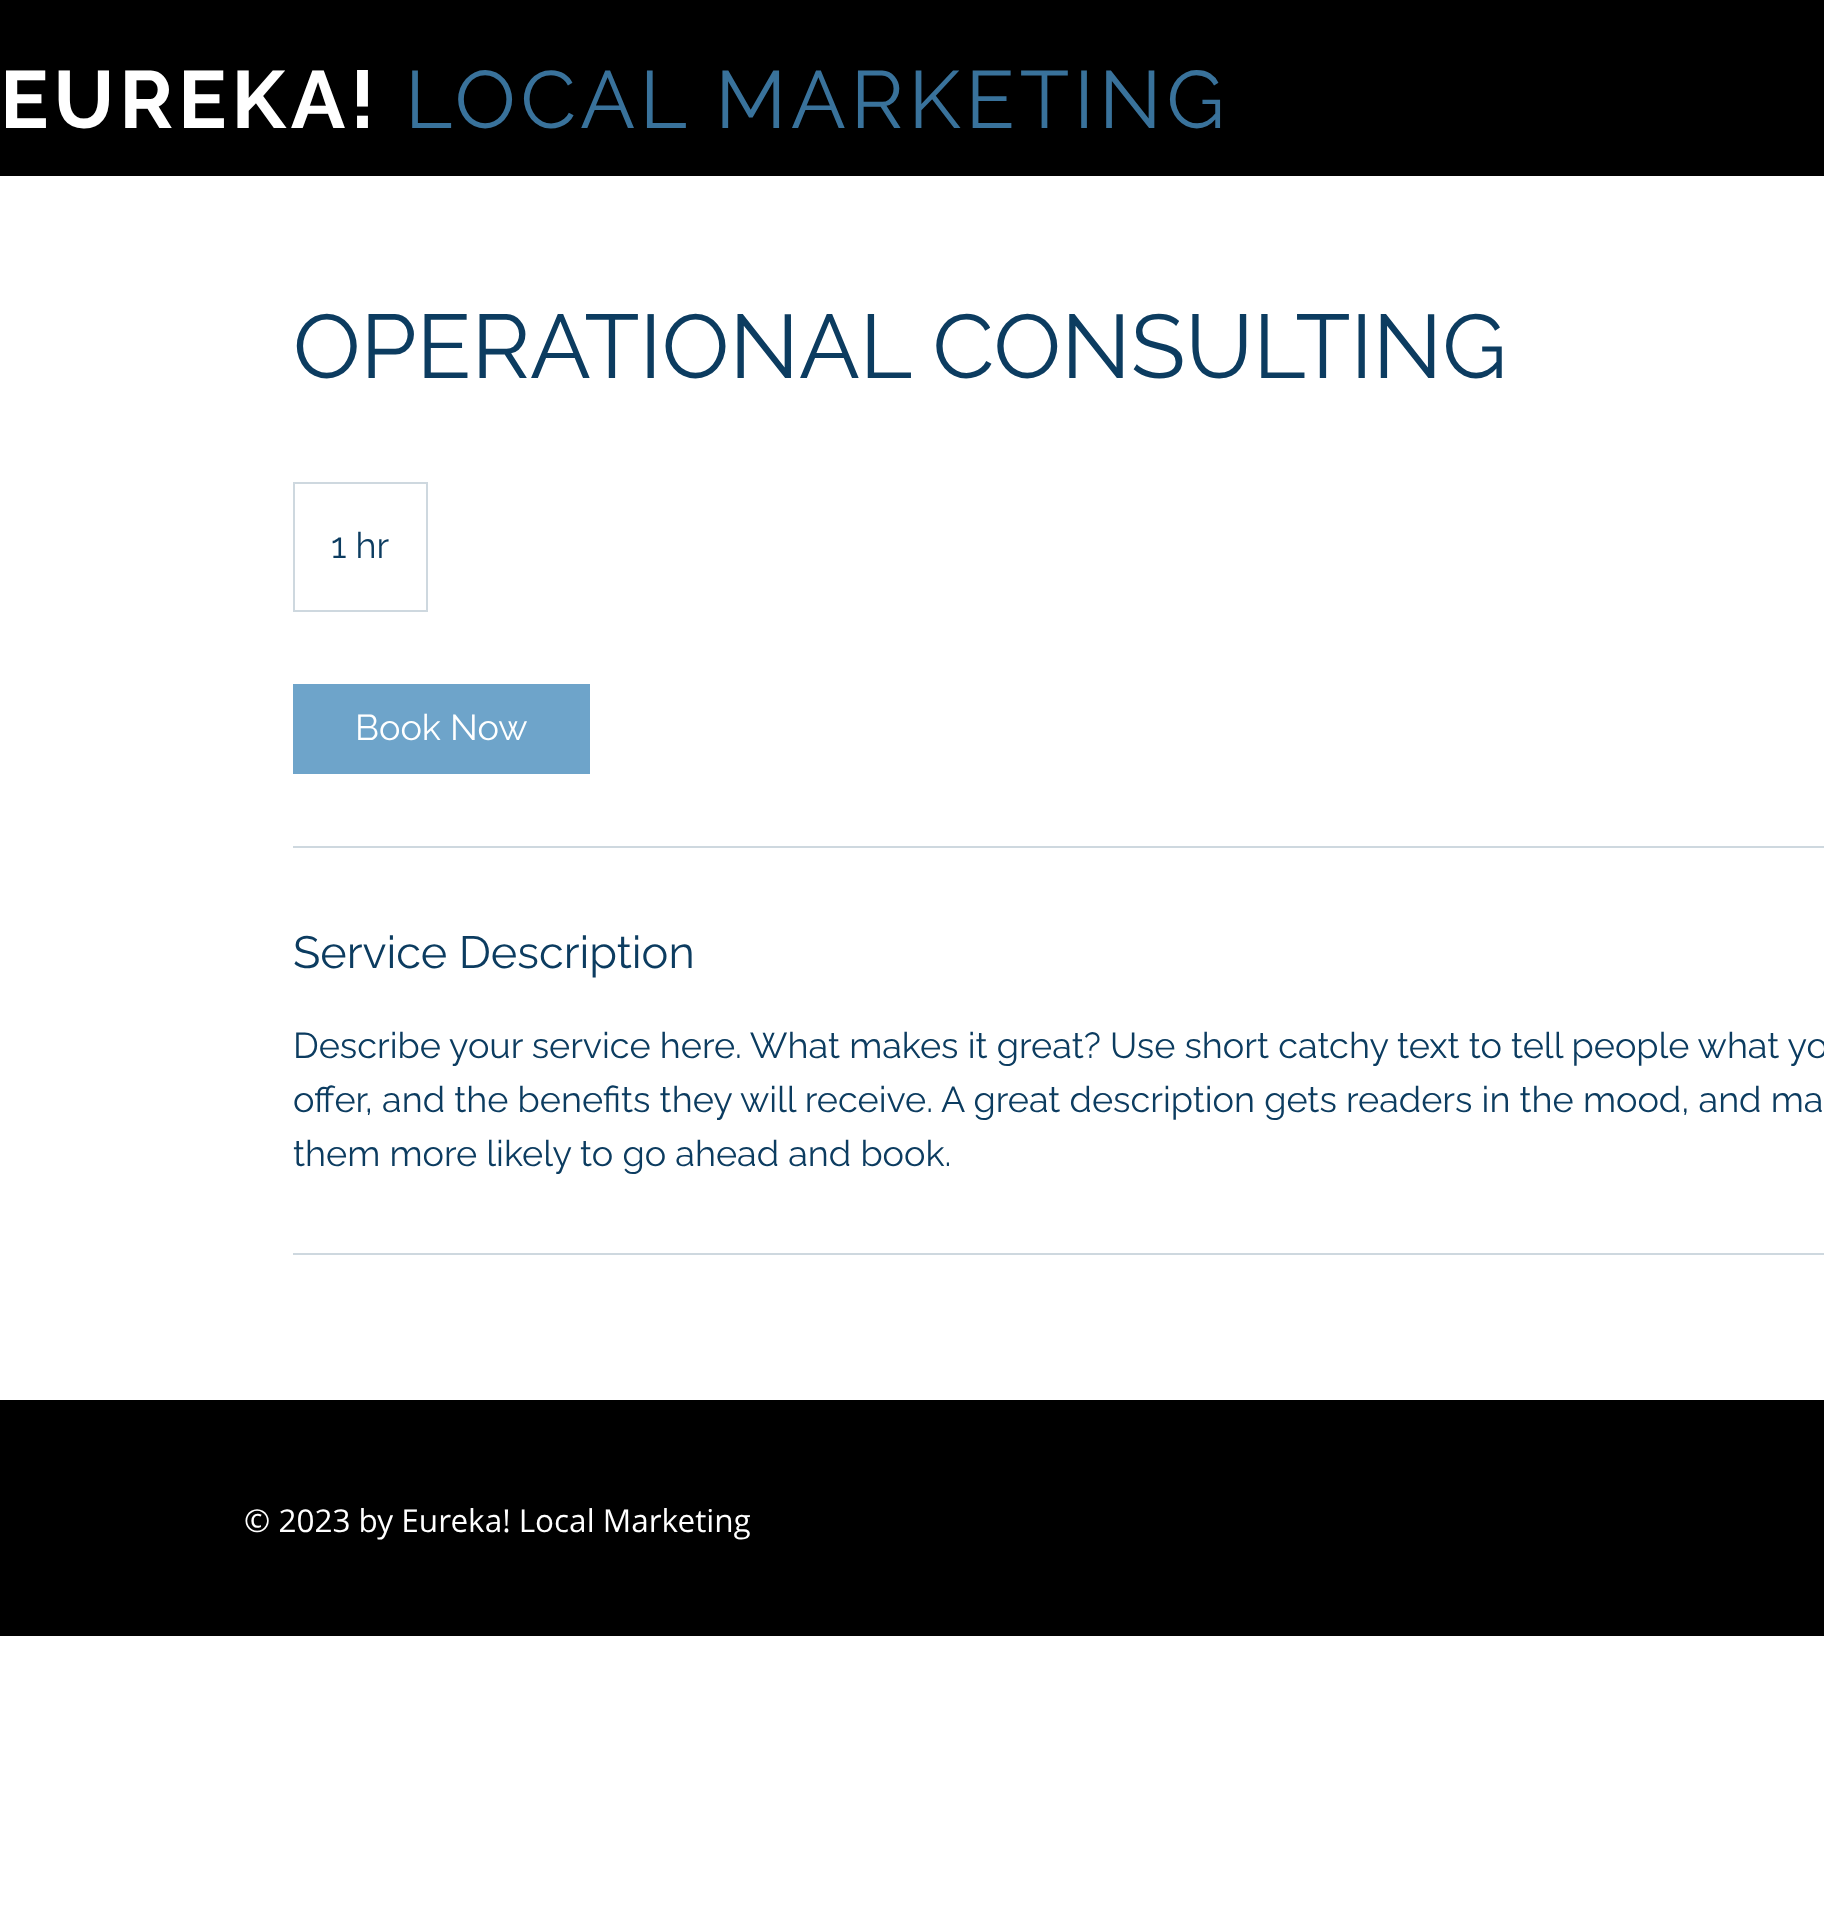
<!DOCTYPE html>
<meta charset="utf-8">
<style>body { margin: 0 } canvas { display: block }</style>
<canvas id="canvas" width="1824" height="1915"></canvas>
<script type="module">
  const canvas = document.getElementById("canvas");
  const ctx = canvas.getContext("2d");
  ctx.miterLimit = 4;
  ctx.fontKerning = "normal";

  ctx.fillStyle = "#ffffff";
  ctx.fillRect(0, 0, 1824, 1915);
  ctx.fillStyle = "#000000";
  ctx.fillRect(0, 0, 1824, 176);
  ctx.letterSpacing = "4.9px";
  ctx.font = "bold 81px Raleway";
  ctx.fillStyle = "#ffffff";
  ctx.fillText("EUREKA!", 0, 128);
  ctx.font = "81px Raleway";
  ctx.fillStyle = "#39729b";
  ctx.fillText("LOCAL MARKETING", 405, 128);
  ctx.letterSpacing = "0px";
  ctx.font = "90px Raleway";
  ctx.fillStyle = "#0c3c60";
  ctx.fillText("OPERATIONAL CONSULTING", 293, 378);
  ctx.strokeStyle = "#ced8df";
  ctx.lineWidth = 2;
  ctx.strokeRect(294, 483, 133, 128);
  ctx.font = "36px Raleway";
  ctx.fillText("1 hr", 331, 558);
  ctx.fillStyle = "#6ea4ca";
  ctx.fillRect(293, 684, 297, 90);
  ctx.fillStyle = "#ffffff";
  ctx.fillText("Book Now", 355, 740);
  ctx.fillStyle = "#ced8df";
  ctx.fillRect(293, 846, 1531, 2);
  ctx.font = "45px Raleway";
  ctx.fillStyle = "#0c3c60";
  ctx.fillText("Service Description", 293, 968);
  ctx.font = "36px Raleway";
  ctx.fillText("Describe your service here. What makes it great? Use short catchy text to tell people what yo", 293, 1058);
  ctx.fillText("offer, and the benefits they will receive. A great description gets readers in the mood, and ma", 293, 1112);
  ctx.fillText("them more likely to go ahead and book.", 293, 1166);
  ctx.fillStyle = "#ced8df";
  ctx.fillRect(293, 1253, 1531, 2);
  ctx.fillStyle = "#000000";
  ctx.fillRect(0, 1400, 1824, 236);
  ctx.font = "31.5px Open Sans";
  ctx.fillStyle = "#ffffff";
  ctx.fillText("© 2023 by Eureka! Local Marketing", 244, 1532);
</script>
